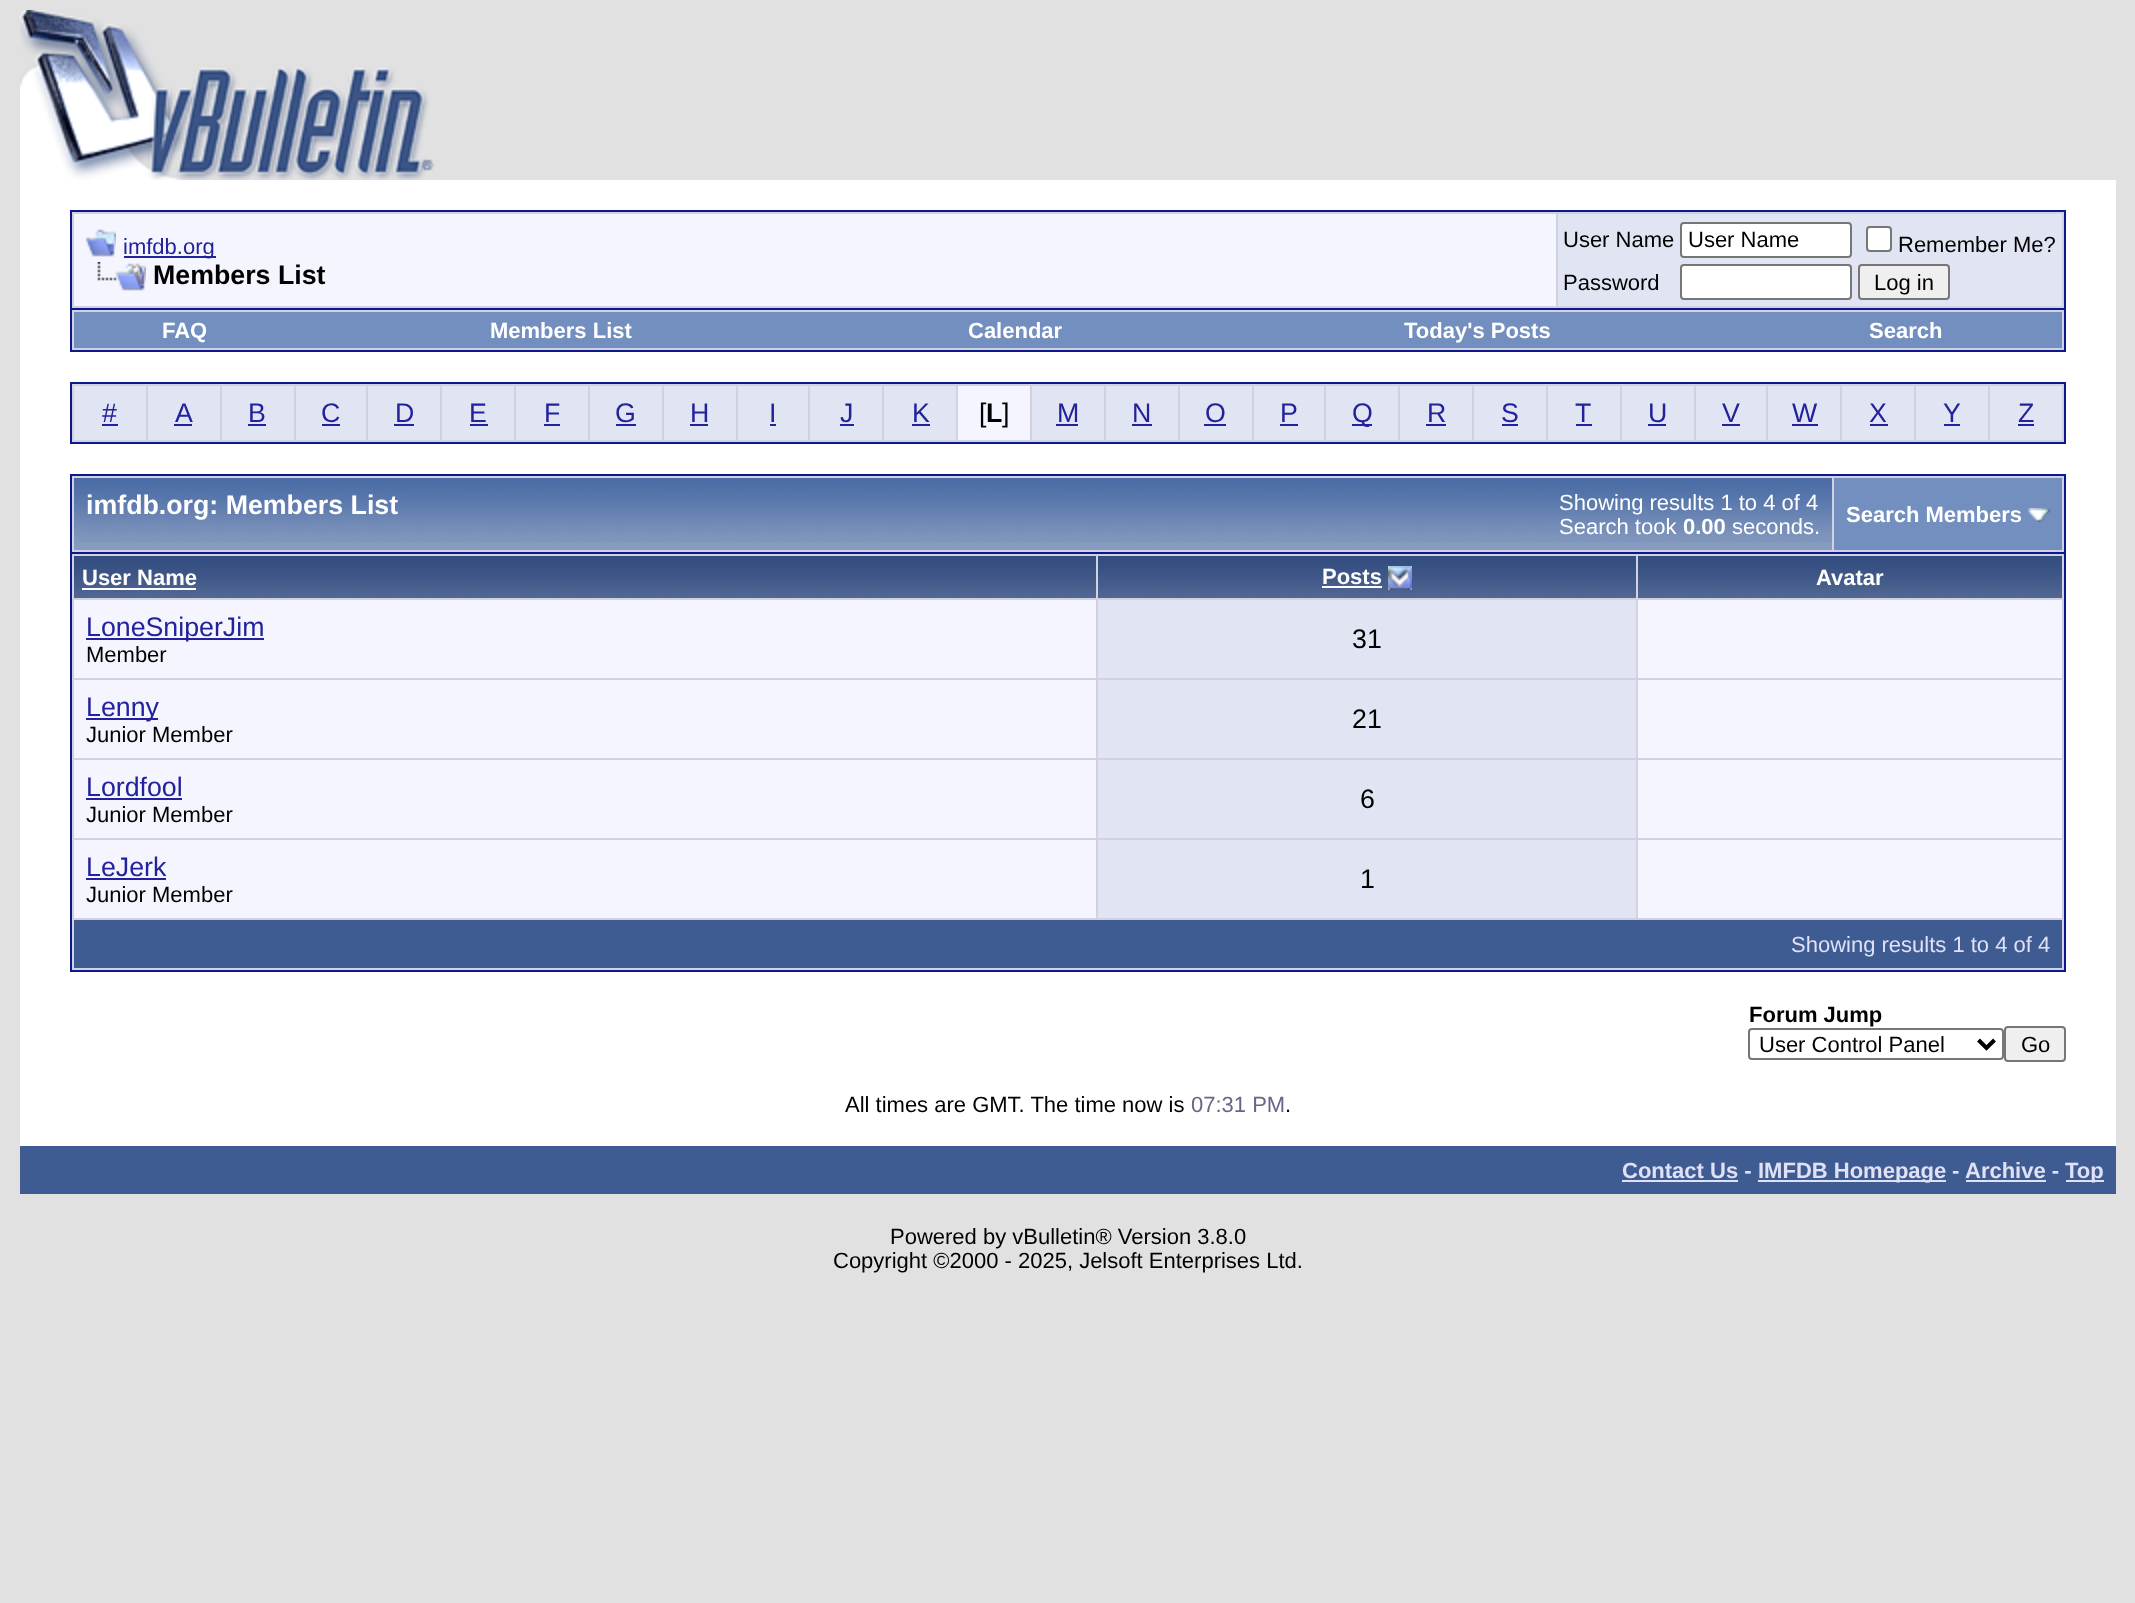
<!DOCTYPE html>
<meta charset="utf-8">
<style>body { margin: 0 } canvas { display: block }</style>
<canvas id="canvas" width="2135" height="1603"></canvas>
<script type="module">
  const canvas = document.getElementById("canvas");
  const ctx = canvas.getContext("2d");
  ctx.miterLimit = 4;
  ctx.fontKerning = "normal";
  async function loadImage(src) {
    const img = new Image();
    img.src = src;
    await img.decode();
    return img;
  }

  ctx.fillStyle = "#e1e1e2";
  ctx.fillRect(0, 0, 2135, 1603);
  ctx.drawImage(await loadImage("img1.png"), 20, 10, 415, 170);
  ctx.fillStyle = "#ffffff";
  ctx.fillRect(20, 180, 2096, 966);
  ctx.fillStyle = "#d1d1e1";
  ctx.beginPath();
  ctx.rect(71, 211, 1994, 98);
  ctx.fill();
  ctx.strokeStyle = "#0b198c";
  ctx.lineWidth = 2;
  ctx.stroke();
  ctx.fillStyle = "#f5f5ff";
  ctx.fillRect(74, 214, 1482, 92);
  ctx.drawImage(await loadImage("img2.png"), 86, 229, 30, 28);
  ctx.fillStyle = "#22229c";
  ctx.fillRect(124, 256, 92, 2);
  ctx.font = "22px Liberation Sans";
  ctx.fillText("imfdb.org", 123, 254);
  ctx.drawImage(await loadImage("img3.png"), 97, 262, 49, 29);
  ctx.font = "bold 26.75px Liberation Sans";
  ctx.fillStyle = "#000000";
  ctx.fillText("Members List", 153, 284);
  ctx.fillStyle = "#e1e4f2";
  ctx.fillRect(1558, 214, 504, 92);
  ctx.font = "22px Liberation Sans";
  ctx.fillStyle = "#000000";
  ctx.fillText("User Name", 1563, 247);
  ctx.fillStyle = "#ffffff";
  ctx.beginPath();
  ctx.roundRect(1681, 223, 170, 34, 3);
  ctx.fill();
  ctx.strokeStyle = "#767676";
  ctx.stroke();
  ctx.fillStyle = "#000000";
  ctx.fillText("User Name", 1688, 247);
  ctx.fillStyle = "#ffffff";
  ctx.beginPath();
  ctx.roundRect(1867, 227, 24, 24, 3);
  ctx.fill();
  ctx.stroke();
  ctx.fillStyle = "#000000";
  ctx.fillText("Remember Me?", 1898, 252);
  ctx.fillText("Password", 1563, 290);
  ctx.fillStyle = "#ffffff";
  ctx.beginPath();
  ctx.roundRect(1681, 265, 170, 34, 3);
  ctx.fill();
  ctx.stroke();
  ctx.fillStyle = "#efefef";
  ctx.beginPath();
  ctx.roundRect(1859, 265, 90, 34, 3);
  ctx.fill();
  ctx.stroke();
  ctx.fillStyle = "#000000";
  ctx.fillText("Log in", 1874, 290);
  ctx.fillStyle = "#d1d1e1";
  ctx.fillRect(72, 310, 1992, 40);
  ctx.fillStyle = "#0b198c";
  ctx.fillRect(2064, 310, 2, 42);
  ctx.fillRect(70, 350, 1996, 2);
  ctx.fillRect(70, 310, 2, 42);
  ctx.fillStyle = "#738fbf";
  ctx.fillRect(74, 312, 1988, 36);
  ctx.font = "bold 22px Liberation Sans";
  ctx.fillStyle = "#ffffff";
  ctx.fillText("FAQ", 162, 338);
  ctx.fillText("Members List", 490, 338);
  ctx.fillText("Calendar", 968, 338);
  ctx.fillText("Today's Posts", 1404, 338);
  ctx.fillText("Search", 1869, 338);
  ctx.fillStyle = "#d1d1e1";
  ctx.beginPath();
  ctx.rect(71, 383, 1994, 60);
  ctx.fill();
  ctx.strokeStyle = "#0b198c";
  ctx.stroke();
  ctx.fillStyle = "#e1e4f2";
  ctx.fillRect(74, 386, 72, 54);
  ctx.font = "26.75px Liberation Sans";
  ctx.fillStyle = "#22229c";
  ctx.fillText("#", 102, 422);
  ctx.fillRect(102, 424, 16, 2);
  ctx.fillStyle = "#e1e4f2";
  ctx.fillRect(148, 386, 72, 54);
  ctx.fillStyle = "#22229c";
  ctx.fillText("A", 175, 422);
  ctx.fillRect(174, 424, 18, 2);
  ctx.fillStyle = "#e1e4f2";
  ctx.fillRect(222, 386, 72, 54);
  ctx.fillStyle = "#22229c";
  ctx.fillText("B", 248, 422);
  ctx.fillRect(248, 424, 18, 2);
  ctx.fillStyle = "#e1e4f2";
  ctx.fillRect(296, 386, 70, 54);
  ctx.fillStyle = "#22229c";
  ctx.fillText("C", 321, 422);
  ctx.fillRect(322, 424, 18, 2);
  ctx.fillStyle = "#e1e4f2";
  ctx.fillRect(368, 386, 72, 54);
  ctx.fillStyle = "#22229c";
  ctx.fillText("D", 395, 422);
  ctx.fillRect(394, 424, 20, 2);
  ctx.fillStyle = "#e1e4f2";
  ctx.fillRect(442, 386, 72, 54);
  ctx.fillStyle = "#22229c";
  ctx.fillText("E", 469, 422);
  ctx.fillRect(470, 424, 18, 2);
  ctx.fillStyle = "#e1e4f2";
  ctx.fillRect(516, 386, 72, 54);
  ctx.fillStyle = "#22229c";
  ctx.fillText("F", 544, 422);
  ctx.fillRect(544, 424, 16, 2);
  ctx.fillStyle = "#e1e4f2";
  ctx.fillRect(590, 386, 72, 54);
  ctx.fillStyle = "#22229c";
  ctx.fillText("G", 615, 422);
  ctx.fillRect(616, 424, 20, 2);
  ctx.fillStyle = "#e1e4f2";
  ctx.fillRect(664, 386, 72, 54);
  ctx.fillStyle = "#22229c";
  ctx.fillText("H", 690, 422);
  ctx.fillRect(690, 424, 18, 2);
  ctx.fillStyle = "#e1e4f2";
  ctx.fillRect(738, 386, 70, 54);
  ctx.fillStyle = "#22229c";
  ctx.fillText("I", 769, 422);
  ctx.fillRect(770, 424, 6, 2);
  ctx.fillStyle = "#e1e4f2";
  ctx.fillRect(810, 386, 72, 54);
  ctx.fillStyle = "#22229c";
  ctx.fillText("J", 840, 422);
  ctx.fillRect(840, 424, 14, 2);
  ctx.fillStyle = "#e1e4f2";
  ctx.fillRect(884, 386, 72, 54);
  ctx.fillStyle = "#22229c";
  ctx.fillText("K", 912, 422);
  ctx.fillRect(912, 424, 18, 2);
  ctx.fillStyle = "#f5f5ff";
  ctx.fillRect(958, 386, 72, 54);
  ctx.fillStyle = "#000000";
  ctx.fillText("[", 979, 422);
  ctx.font = "bold 26.75px Liberation Sans";
  ctx.fillText("L", 986, 422);
  ctx.font = "26.75px Liberation Sans";
  ctx.fillText("]", 1002, 422);
  ctx.fillStyle = "#e1e4f2";
  ctx.fillRect(1032, 386, 72, 54);
  ctx.fillStyle = "#22229c";
  ctx.fillText("M", 1057, 422);
  ctx.fillRect(1056, 424, 22, 2);
  ctx.fillStyle = "#e1e4f2";
  ctx.fillRect(1106, 386, 72, 54);
  ctx.fillStyle = "#22229c";
  ctx.fillText("N", 1132, 422);
  ctx.fillRect(1132, 424, 20, 2);
  ctx.fillStyle = "#e1e4f2";
  ctx.fillRect(1180, 386, 72, 54);
  ctx.fillStyle = "#22229c";
  ctx.fillText("O", 1205, 422);
  ctx.fillRect(1204, 424, 22, 2);
  ctx.fillStyle = "#e1e4f2";
  ctx.fillRect(1254, 386, 70, 54);
  ctx.fillStyle = "#22229c";
  ctx.fillText("P", 1280, 422);
  ctx.fillRect(1280, 424, 18, 2);
  ctx.fillStyle = "#e1e4f2";
  ctx.fillRect(1326, 386, 72, 54);
  ctx.fillStyle = "#22229c";
  ctx.fillRect(1352, 424, 20, 2);
  ctx.fillText("Q", 1352, 422);
  ctx.fillStyle = "#e1e4f2";
  ctx.fillRect(1400, 386, 72, 54);
  ctx.fillStyle = "#22229c";
  ctx.fillText("R", 1427, 422);
  ctx.fillRect(1426, 424, 20, 2);
  ctx.fillStyle = "#e1e4f2";
  ctx.fillRect(1474, 386, 72, 54);
  ctx.fillStyle = "#22229c";
  ctx.fillText("S", 1501, 422);
  ctx.fillRect(1502, 424, 16, 2);
  ctx.fillStyle = "#e1e4f2";
  ctx.fillRect(1548, 386, 72, 54);
  ctx.fillStyle = "#22229c";
  ctx.fillText("T", 1575, 422);
  ctx.fillRect(1576, 424, 16, 2);
  ctx.fillStyle = "#e1e4f2";
  ctx.fillRect(1622, 386, 72, 54);
  ctx.fillStyle = "#22229c";
  ctx.fillText("U", 1648, 422);
  ctx.fillRect(1648, 424, 18, 2);
  ctx.fillStyle = "#e1e4f2";
  ctx.fillRect(1696, 386, 70, 54);
  ctx.fillStyle = "#22229c";
  ctx.fillText("V", 1722, 422);
  ctx.fillRect(1722, 424, 18, 2);
  ctx.fillStyle = "#e1e4f2";
  ctx.fillRect(1768, 386, 72, 54);
  ctx.fillStyle = "#22229c";
  ctx.fillText("W", 1792, 422);
  ctx.fillRect(1792, 424, 26, 2);
  ctx.fillStyle = "#e1e4f2";
  ctx.fillRect(1842, 386, 72, 54);
  ctx.fillStyle = "#22229c";
  ctx.fillText("X", 1869, 422);
  ctx.fillRect(1870, 424, 18, 2);
  ctx.fillStyle = "#e1e4f2";
  ctx.fillRect(1916, 386, 72, 54);
  ctx.fillStyle = "#22229c";
  ctx.fillText("Y", 1943, 422);
  ctx.fillRect(1944, 424, 16, 2);
  ctx.fillStyle = "#e1e4f2";
  ctx.fillRect(1990, 386, 72, 54);
  ctx.fillStyle = "#22229c";
  ctx.fillText("Z", 2018, 422);
  ctx.fillRect(2018, 424, 16, 2);
  ctx.fillStyle = "#d1d1e1";
  ctx.fillRect(72, 476, 1992, 76);
  ctx.fillStyle = "#0b198c";
  ctx.fillRect(70, 474, 1996, 2);
  ctx.fillRect(2064, 474, 2, 78);
  ctx.fillRect(70, 474, 2, 78);
  ctx.fillStyle = "#869bbf";
  ctx.fillRect(74, 543, 1758, 7);
  ctx.drawImage(await loadImage("img4.png"), 74, 478, 1758, 65);
  ctx.font = "bold 26.75px Liberation Sans";
  ctx.fillStyle = "#ffffff";
  ctx.fillText("imfdb.org: Members List", 86, 514);
  ctx.font = "22px Liberation Sans";
  ctx.fillText("Showing results 1 to 4 of 4", 1559, 510);
  ctx.fillText("Search took", 1559, 534);
  ctx.font = "bold 22px Liberation Sans";
  ctx.fillText("0.00", 1683, 534);
  ctx.font = "22px Liberation Sans";
  ctx.fillText("seconds.", 1732, 534);
  ctx.fillStyle = "#738fbf";
  ctx.fillRect(1834, 478, 228, 72);
  ctx.font = "bold 22px Liberation Sans";
  ctx.fillStyle = "#ffffff";
  ctx.fillText("Search Members", 1846, 522);
  ctx.drawImage(await loadImage("img5.png"), 2028, 508, 22, 14);
  ctx.fillStyle = "#d1d1e1";
  ctx.beginPath();
  ctx.rect(71, 553, 1994, 418);
  ctx.fill();
  ctx.stroke();
  ctx.drawImage(await loadImage("img6.png"), 74, 556, 1022, 42);
  ctx.fillStyle = "#ffffff";
  ctx.fillText("User Name", 82, 585);
  ctx.fillRect(82, 588, 114, 2);
  ctx.drawImage(await loadImage("img7.png"), 1098, 556, 538, 42);
  ctx.fillText("Posts", 1322, 584);
  ctx.fillRect(1322, 586, 60, 2);
  ctx.drawImage(await loadImage("img8.png"), 1388, 566, 24, 24);
  ctx.drawImage(await loadImage("img9.png"), 1638, 556, 424, 42);
  ctx.fillText("Avatar", 1816, 585);
  ctx.fillStyle = "#f5f5ff";
  ctx.fillRect(74, 600, 1022, 78);
  ctx.fillStyle = "#22229c";
  ctx.fillRect(86, 638, 178, 2);
  ctx.font = "26.75px Liberation Sans";
  ctx.fillText("LoneSniperJim", 86, 636);
  ctx.font = "22px Liberation Sans";
  ctx.fillStyle = "#000000";
  ctx.fillText("Member", 86, 662);
  ctx.fillStyle = "#e1e4f2";
  ctx.fillRect(1098, 600, 538, 78);
  ctx.font = "26.75px Liberation Sans";
  ctx.fillStyle = "#000000";
  ctx.fillText("31", 1352, 648);
  ctx.fillStyle = "#f5f5ff";
  ctx.fillRect(1638, 600, 424, 78);
  ctx.fillRect(74, 680, 1022, 78);
  ctx.fillStyle = "#22229c";
  ctx.fillRect(86, 718, 72, 2);
  ctx.fillText("Lenny", 86, 716);
  ctx.font = "22px Liberation Sans";
  ctx.fillStyle = "#000000";
  ctx.fillText("Junior Member", 86, 742);
  ctx.fillStyle = "#e1e4f2";
  ctx.fillRect(1098, 680, 538, 78);
  ctx.font = "26.75px Liberation Sans";
  ctx.fillStyle = "#000000";
  ctx.fillText("21", 1352, 728);
  ctx.fillStyle = "#f5f5ff";
  ctx.fillRect(1638, 680, 424, 78);
  ctx.fillRect(74, 760, 1022, 78);
  ctx.fillStyle = "#22229c";
  ctx.fillText("Lordfool", 86, 796);
  ctx.fillRect(86, 798, 96, 2);
  ctx.font = "22px Liberation Sans";
  ctx.fillStyle = "#000000";
  ctx.fillText("Junior Member", 86, 822);
  ctx.fillStyle = "#e1e4f2";
  ctx.fillRect(1098, 760, 538, 78);
  ctx.font = "26.75px Liberation Sans";
  ctx.fillStyle = "#000000";
  ctx.fillText("6", 1360, 808);
  ctx.fillStyle = "#f5f5ff";
  ctx.fillRect(1638, 760, 424, 78);
  ctx.fillRect(74, 840, 1022, 78);
  ctx.fillStyle = "#22229c";
  ctx.fillText("LeJerk", 86, 876);
  ctx.fillRect(86, 878, 80, 2);
  ctx.font = "22px Liberation Sans";
  ctx.fillStyle = "#000000";
  ctx.fillText("Junior Member", 86, 902);
  ctx.fillStyle = "#e1e4f2";
  ctx.fillRect(1098, 840, 538, 78);
  ctx.font = "26.75px Liberation Sans";
  ctx.fillStyle = "#000000";
  ctx.fillText("1", 1360, 888);
  ctx.fillStyle = "#f5f5ff";
  ctx.fillRect(1638, 840, 424, 78);
  ctx.fillStyle = "#3e5c92";
  ctx.fillRect(74, 920, 1988, 48);
  ctx.font = "22px Liberation Sans";
  ctx.fillStyle = "#e0e0f6";
  ctx.fillText("Showing results 1 to 4 of 4", 1791, 952);
  ctx.font = "bold 22px Liberation Sans";
  ctx.fillStyle = "#000000";
  ctx.fillText("Forum Jump", 1749, 1022);
  ctx.beginPath();
  ctx.roundRect(1749, 1029, 254, 30, 3);
  ctx.strokeStyle = "#767676";
  ctx.stroke();
  ctx.beginPath();
  ctx.moveTo(1978.5, 1040);
  ctx.lineTo(1986.5, 1048);
  ctx.lineTo(1994.5, 1040);
  ctx.strokeStyle = "#000000";
  ctx.lineWidth = 4;
  ctx.stroke();
  ctx.font = "22px Liberation Sans";
  ctx.fillText("User Control Panel", 1759, 1052);
  ctx.fillStyle = "#efefef";
  ctx.beginPath();
  ctx.roundRect(2005, 1027, 60, 34, 3);
  ctx.fill();
  ctx.strokeStyle = "#767676";
  ctx.lineWidth = 2;
  ctx.stroke();
  ctx.fillStyle = "#000000";
  ctx.fillText("Go", 2021, 1052);
  ctx.fillText("All times are GMT. The time now is", 845, 1112);
  ctx.fillStyle = "#666686";
  ctx.fillText("07:31 PM", 1191, 1112);
  ctx.fillStyle = "#000000";
  ctx.fillText(".", 1285, 1112);
  ctx.fillStyle = "#3e5c92";
  ctx.fillRect(20, 1146, 2096, 48);
  ctx.font = "bold 22px Liberation Sans";
  ctx.fillStyle = "#e0e0f6";
  ctx.fillText("Contact Us -", 1622, 1178);
  ctx.fillRect(1622, 1180, 116, 2);
  ctx.fillRect(1758, 1180, 188, 2);
  ctx.fillText("IMFDB Homepage", 1758, 1178);
  ctx.fillText("-", 1952, 1178);
  ctx.fillText("Archive -", 1965, 1178);
  ctx.fillRect(1966, 1180, 80, 2);
  ctx.fillRect(2066, 1180, 38, 2);
  ctx.fillText("Top", 2065, 1178);
  ctx.font = "22px Liberation Sans";
  ctx.fillStyle = "#000000";
  ctx.fillText("Powered by vBulletin® Version 3.8.0", 890, 1244);
  ctx.fillText("Copyright ©2000 - 2025, Jelsoft Enterprises Ltd.", 833, 1268);
</script>
